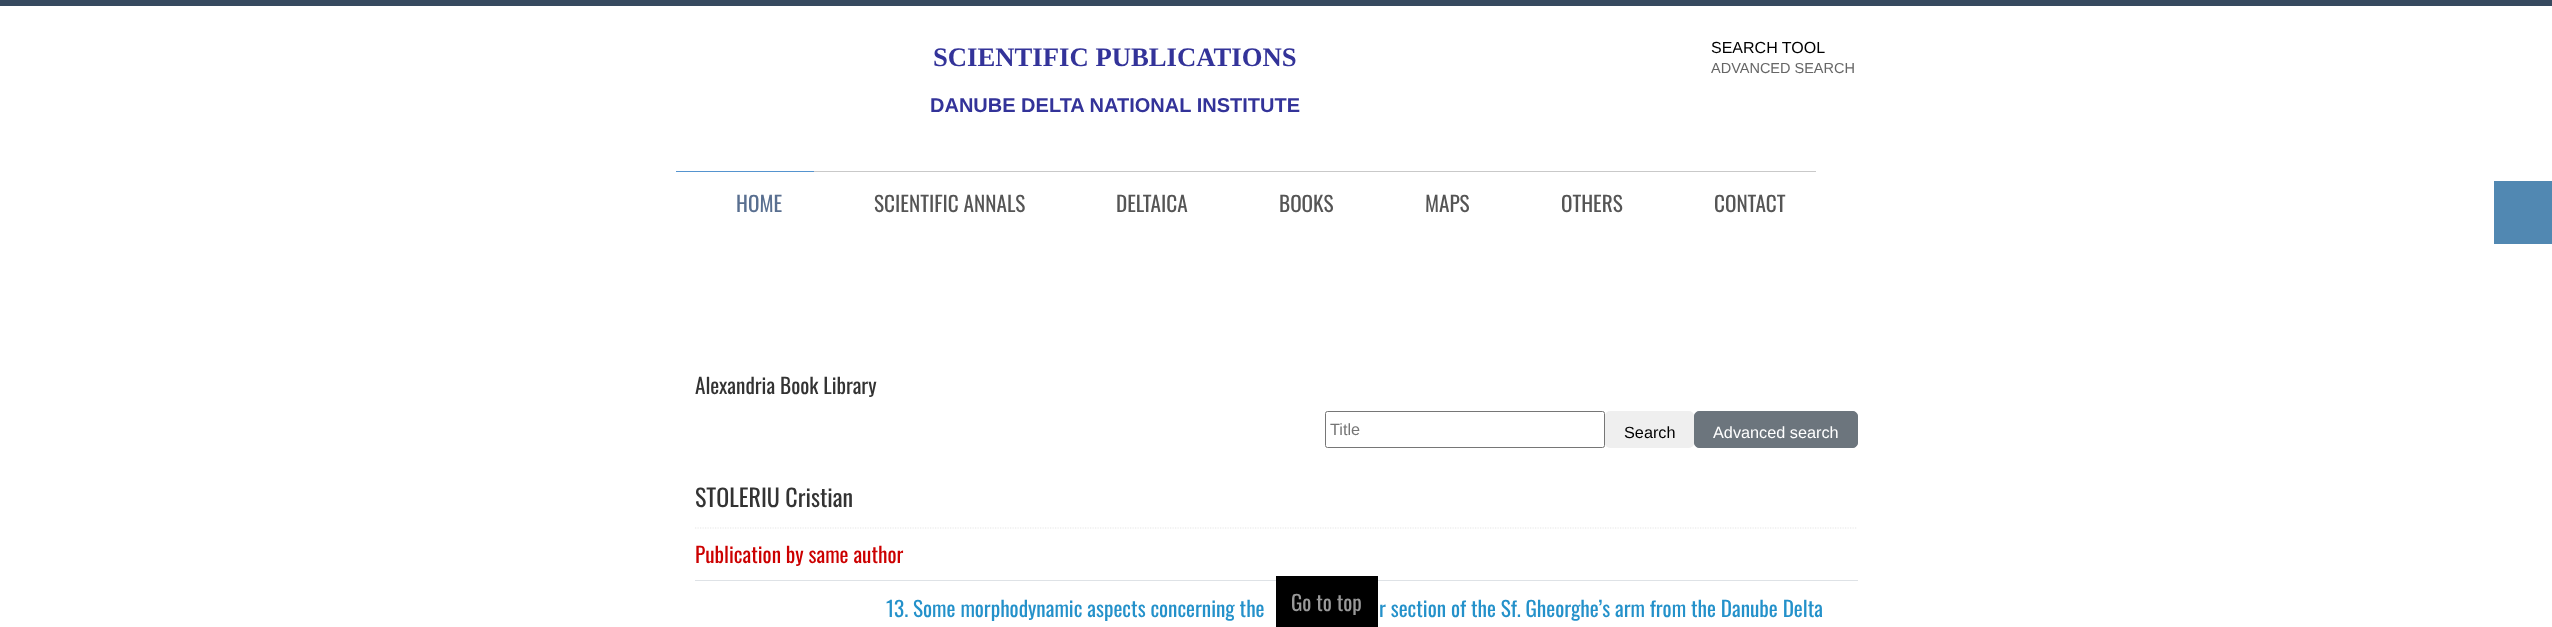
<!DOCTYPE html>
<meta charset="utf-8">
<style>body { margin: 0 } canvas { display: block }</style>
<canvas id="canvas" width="2552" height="627"></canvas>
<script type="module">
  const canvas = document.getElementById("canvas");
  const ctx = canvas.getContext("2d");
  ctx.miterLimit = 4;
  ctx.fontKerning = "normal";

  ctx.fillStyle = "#ffffff";
  ctx.fillRect(0, 0, 2552, 627);
  ctx.fillStyle = "#374a5f";
  ctx.fillRect(0, 0, 2552, 6);
  ctx.font = "bold 26.7px Liberation Serif";
  ctx.fillStyle = "#333399";
  ctx.fillText("SCIENTIFIC PUBLICATIONS", 933, 66);
  ctx.font = "bold 20px Liberation Sans";
  ctx.fillText("DANUBE DELTA NATIONAL INSTITUTE", 930, 112);
  ctx.font = "16px Liberation Sans";
  ctx.fillStyle = "#000000";
  ctx.fillText("SEARCH TOOL", 1711, 53);
  ctx.font = "14.5px Liberation Sans";
  ctx.fillStyle = "#666666";
  ctx.fillText("ADVANCED SEARCH", 1711, 73);
  ctx.fillStyle = "#5594cf";
  ctx.fillRect(676, 171, 138, 1);
  ctx.font = "21.25px Oswald";
  ctx.fillStyle = "#596f90";
  ctx.fillText("HOME", 736, 212);
  ctx.fillStyle = "#c9c9c9";
  ctx.fillRect(814, 171, 1002, 1);
  ctx.fillStyle = "#555555";
  ctx.fillText("SCIENTIFIC ANNALS", 874, 212);
  ctx.fillText("DELTAICA", 1116, 212);
  ctx.fillText("BOOKS", 1279, 212);
  ctx.fillText("MAPS", 1425, 212);
  ctx.fillText("OTHERS", 1561, 212);
  ctx.fillText("CONTACT", 1714, 212);
  ctx.fillStyle = "#5188b2";
  ctx.fillRect(2494, 181, 58, 63);
  ctx.fillStyle = "#333333";
  ctx.fillText("Alexandria Book Library", 695, 394);
  ctx.beginPath();
  ctx.roundRect(1325.5, 411.5, 279, 36, 2);
  ctx.strokeStyle = "#767676";
  ctx.stroke();
  ctx.font = "16.25px Liberation Sans";
  ctx.fillStyle = "#757575";
  ctx.fillText("Title", 1330, 435);
  ctx.fillStyle = "#efefef";
  ctx.beginPath();
  ctx.roundRect(1605, 411, 89, 37, 5);
  ctx.fill();
  ctx.fillStyle = "#000000";
  ctx.fillText("Search", 1624, 438);
  ctx.fillStyle = "#6c757d";
  ctx.beginPath();
  ctx.roundRect(1694.5, 411.5, 163, 36, 4.5);
  ctx.fill();
  ctx.strokeStyle = "#6c757d";
  ctx.stroke();
  ctx.fillStyle = "#ffffff";
  ctx.fillText("Advanced search", 1713, 438);
  ctx.font = "24px Oswald";
  ctx.fillStyle = "#333333";
  ctx.fillText("STOLERIU Cristian", 695, 507);
  ctx.beginPath();
  ctx.moveTo(695, 528);
  ctx.lineTo(1857.5, 528);
  ctx.strokeStyle = "#e6e6e6";
  ctx.lineWidth = 1.2;
  ctx.setLineDash([1.25, 1.25]);
  ctx.stroke();
  ctx.font = "21.25px Oswald";
  ctx.fillStyle = "#cc0000";
  ctx.fillText("Publication by same author", 695, 563);
  ctx.fillStyle = "#dee2e6";
  ctx.fillRect(695, 580, 1163, 1);
  ctx.fillStyle = "#2491ca";
  ctx.fillText("13. Some morphodynamic aspects concerning the", 886, 617);
  ctx.fillText("r section of the Sf. Gheorghe’s arm from the Danube Delta", 1379, 617);
  ctx.fillStyle = "#000000";
  ctx.fillRect(1276, 576, 102, 51);
  ctx.fillStyle = "#999999";
  ctx.fillText("Go to top", 1291, 611);
</script>
